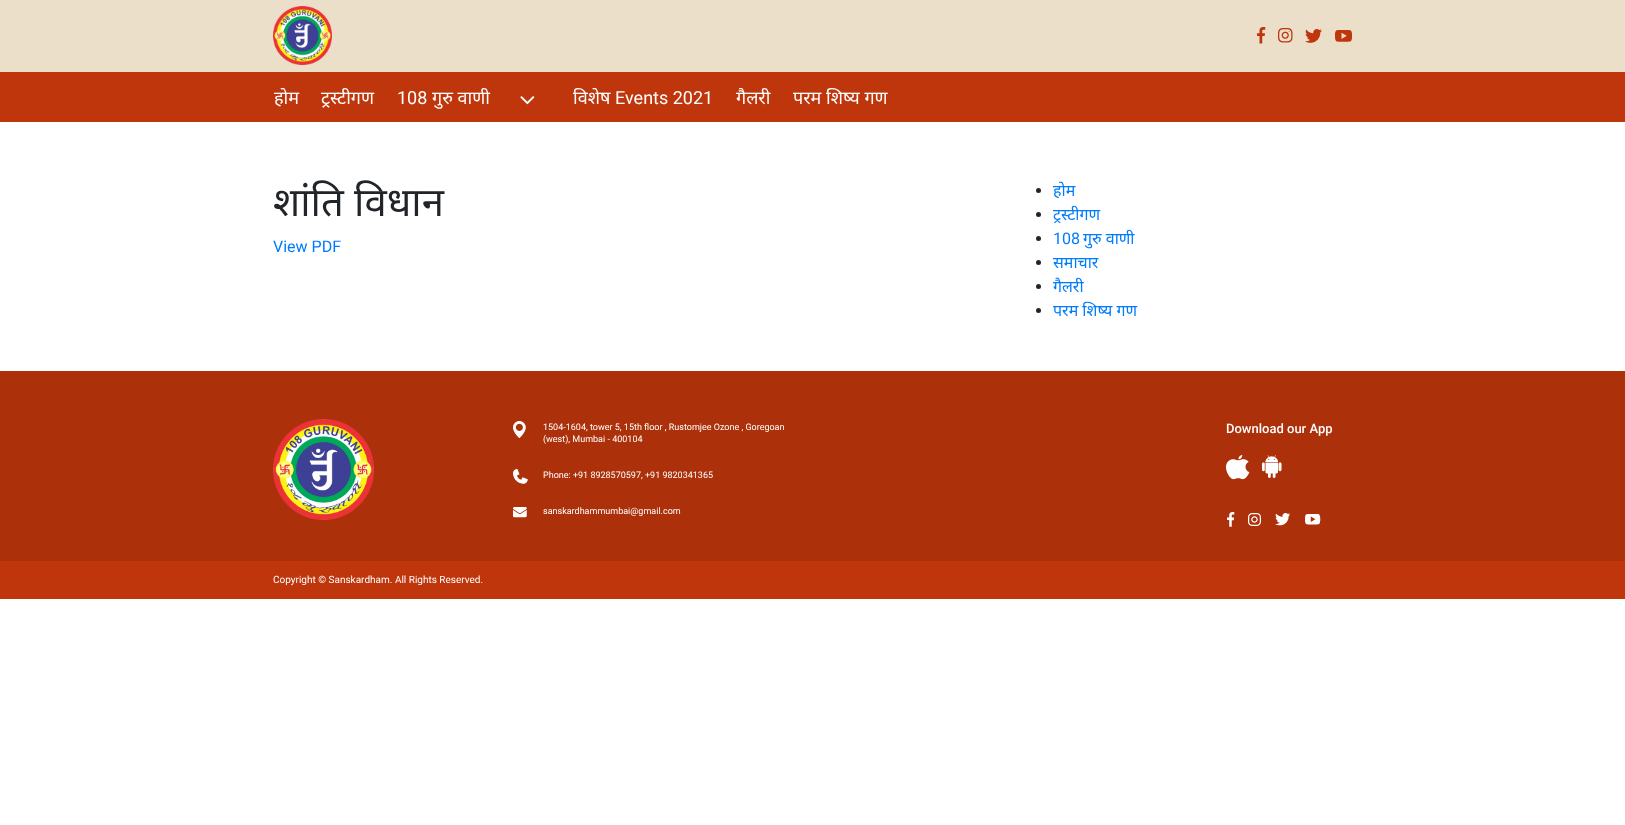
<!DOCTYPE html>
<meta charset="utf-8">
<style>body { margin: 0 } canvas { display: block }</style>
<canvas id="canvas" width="1625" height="825"></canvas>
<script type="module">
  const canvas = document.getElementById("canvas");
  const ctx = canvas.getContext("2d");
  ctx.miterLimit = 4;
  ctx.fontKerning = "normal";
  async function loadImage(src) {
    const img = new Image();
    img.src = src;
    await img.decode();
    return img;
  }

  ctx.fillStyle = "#ffffff";
  ctx.fillRect(0, 0, 1625, 825);
  ctx.fillStyle = "#ebdfca";
  ctx.fillRect(0, 0, 1625, 72);
  ctx.drawImage(await loadImage("img1.png"), 273, 6, 59, 59);
  ctx.drawImage(await loadImage("img2.png"), 1257, 27, 9, 17);
  ctx.drawImage(await loadImage("img3.png"), 1278, 28, 15, 15);
  ctx.drawImage(await loadImage("img4.png"), 1305, 29, 17, 14);
  ctx.drawImage(await loadImage("img5.png"), 1335, 30, 17, 12);
  ctx.fillStyle = "#bf360c";
  ctx.fillRect(0, 72, 1625, 50);
  ctx.font = "18px Noto Sans";
  ctx.fillStyle = "#ffffff";
  ctx.fillText("होम", 274, 104);
  ctx.fillText("ट्रस्टीगण", 321, 104);
  ctx.font = "18px Roboto";
  ctx.fillText("108", 397, 104);
  ctx.font = "18px Noto Sans";
  ctx.fillText("गुरु वाणी", 432, 104);
  ctx.drawImage(await loadImage("img6.png"), 520, 96, 15, 9);
  ctx.fillText("विशेष", 573, 104);
  ctx.font = "18px Roboto";
  ctx.fillText("Events 2021", 615, 104);
  ctx.font = "18px Noto Sans";
  ctx.fillText("गैलरी", 736, 104);
  ctx.fillText("परम शिष्य गण", 793, 104);
  ctx.font = "40px Noto Sans";
  ctx.fillStyle = "#212529";
  ctx.fillText("शांति विधान", 273, 216);
  ctx.font = "16px Roboto";
  ctx.fillStyle = "#007bff";
  ctx.fillText("View PDF", 273, 252);
  ctx.fillStyle = "#212529";
  ctx.beginPath();
  ctx.arc(1038.5, 190.5, 2.5, 0, Math.PI * 2);
  ctx.fill();
  ctx.font = "16px Noto Sans";
  ctx.fillStyle = "#007bff";
  ctx.fillText("होम", 1053, 196);
  ctx.fillStyle = "#212529";
  ctx.beginPath();
  ctx.arc(1038.5, 214.5, 2.5, 0, Math.PI * 2);
  ctx.fill();
  ctx.fillStyle = "#007bff";
  ctx.fillText("ट्रस्टीगण", 1053, 220);
  ctx.fillStyle = "#212529";
  ctx.beginPath();
  ctx.arc(1038.5, 238.5, 2.5, 0, Math.PI * 2);
  ctx.fill();
  ctx.font = "16px Roboto";
  ctx.fillStyle = "#007bff";
  ctx.fillText("108", 1053, 244);
  ctx.font = "16px Noto Sans";
  ctx.fillText("गुरु वाणी", 1083, 244);
  ctx.fillStyle = "#212529";
  ctx.beginPath();
  ctx.arc(1038.5, 262.5, 2.5, 0, Math.PI * 2);
  ctx.fill();
  ctx.fillStyle = "#007bff";
  ctx.fillText("समाचार", 1053, 268);
  ctx.fillStyle = "#212529";
  ctx.beginPath();
  ctx.arc(1038.5, 286.5, 2.5, 0, Math.PI * 2);
  ctx.fill();
  ctx.fillStyle = "#007bff";
  ctx.fillText("गैलरी", 1053, 292);
  ctx.fillStyle = "#212529";
  ctx.beginPath();
  ctx.arc(1038.5, 310.5, 2.5, 0, Math.PI * 2);
  ctx.fill();
  ctx.fillStyle = "#007bff";
  ctx.fillText("परम शिष्य गण", 1053, 316);
  ctx.fillStyle = "#ac310b";
  ctx.fillRect(0, 371, 1625, 190);
  ctx.drawImage(await loadImage("img7.png"), 273, 419, 101, 101);
  ctx.drawImage(await loadImage("img8.png"), 513, 421, 13, 17);
  ctx.font = "9px Roboto";
  ctx.fillStyle = "#ffffff";
  ctx.fillText("1504-1604, tower 5, 15th floor , Rustomjee Ozone , Goregoan", 543, 430);
  ctx.fillText("(west), Mumbai - 400104", 543, 442);
  ctx.drawImage(await loadImage("img9.png"), 513, 469, 15, 15);
  ctx.fillText("Phone: +91 8928570597, +91 9820341365", 543, 478);
  ctx.drawImage(await loadImage("img10.png"), 513, 507, 14, 11);
  ctx.fillText("sanskardhammumbai@gmail.com", 543, 514);
  ctx.font = "500 13px Roboto";
  ctx.fillText("Download our App", 1226, 433);
  ctx.drawImage(await loadImage("img11.png"), 1226, 455, 24, 25);
  ctx.drawImage(await loadImage("img12.png"), 1262, 455, 20, 23);
  ctx.drawImage(await loadImage("img13.png"), 1227, 512, 8, 15);
  ctx.drawImage(await loadImage("img14.png"), 1248, 513, 13, 13);
  ctx.drawImage(await loadImage("img15.png"), 1275, 513, 15, 13);
  ctx.drawImage(await loadImage("img16.png"), 1305, 514, 16, 11);
  ctx.fillStyle = "#bf360c";
  ctx.fillRect(0, 561, 1625, 38);
  ctx.font = "10px Roboto";
  ctx.fillStyle = "#ffffff";
  ctx.fillText("Copyright © Sanskardham. All Rights Reserved.", 273, 583);
</script>
